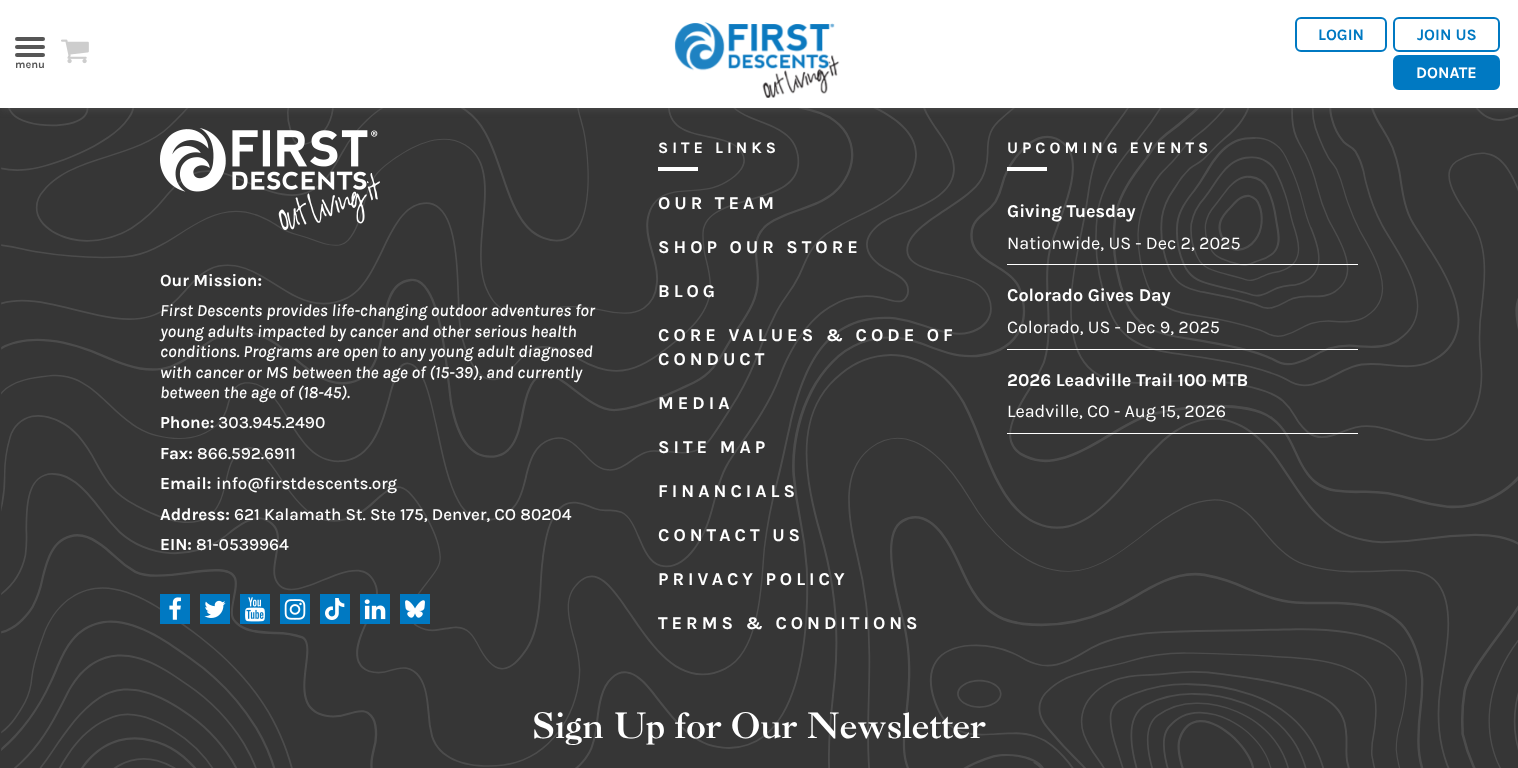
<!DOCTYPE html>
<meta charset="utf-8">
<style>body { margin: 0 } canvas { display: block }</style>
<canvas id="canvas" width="1518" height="768"></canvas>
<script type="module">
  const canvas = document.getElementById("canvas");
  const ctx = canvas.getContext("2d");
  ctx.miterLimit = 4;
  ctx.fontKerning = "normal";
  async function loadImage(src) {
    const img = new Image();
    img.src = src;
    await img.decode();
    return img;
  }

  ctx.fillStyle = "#363636";
  ctx.fillRect(0, 0, 1518, 768);
  ctx.drawImage(await loadImage("img3.png"), 1, 108, 1517, 660);
  ctx.fillStyle = "#565656";
  ctx.filter = "blur(5px)";
  ctx.beginPath();
  ctx.rect(2, 2, 1514, 105);
  ctx.fill();
  ctx.filter = "none";
  ctx.fillStyle = "#ffffff";
  ctx.fillRect(0, 0, 1518, 108);
  ctx.drawImage(await loadImage("img1.png"), 61, 39, 28, 25);
  ctx.drawImage(await loadImage("img2.png"), 674, 22, 166, 76);
  ctx.beginPath();
  ctx.roundRect(1296, 18, 90, 33, 5);
  ctx.strokeStyle = "#0079c2";
  ctx.lineWidth = 2;
  ctx.stroke();
  ctx.font = "bold 16px Karla";
  ctx.fillStyle = "#0079c2";
  ctx.fillText("LOGIN", 1318, 40);
  ctx.beginPath();
  ctx.roundRect(1394, 18, 105, 33, 5);
  ctx.stroke();
  ctx.fillText("JOIN US", 1417, 40);
  ctx.beginPath();
  ctx.roundRect(1394, 56, 105, 33, 5);
  ctx.fill();
  ctx.stroke();
  ctx.fillStyle = "#ffffff";
  ctx.fillText("DONATE", 1416, 78);
  ctx.fillStyle = "#565656";
  ctx.beginPath();
  ctx.roundRect(15, 37, 30, 4, 2);
  ctx.fill();
  ctx.beginPath();
  ctx.roundRect(15, 45, 30, 4, 2);
  ctx.fill();
  ctx.beginPath();
  ctx.roundRect(15, 53, 30, 4, 2);
  ctx.fill();
  ctx.font = "bold 11px Karla";
  ctx.fillText("menu", 15, 68);
  ctx.drawImage(await loadImage("img4.png"), 160, 128, 220, 102);
  ctx.font = "bold 17px Karla";
  ctx.fillStyle = "#ffffff";
  ctx.fillText("Our Mission:", 160, 286);
  ctx.font = "italic 500 17px Karla";
  ctx.fillText("First Descents provides life-changing outdoor adventures for", 160, 316);
  ctx.fillText("young adults impacted by cancer and other serious health", 160, 337);
  ctx.fillText("conditions. Programs are open to any young adult diagnosed", 160, 357);
  ctx.fillText("with cancer or MS between the age of (15-39), and currently", 160, 378);
  ctx.fillText("between the age of (18-45).", 160, 398);
  ctx.font = "bold 17px Karla";
  ctx.fillText("Phone:", 160, 428);
  ctx.font = "500 17px Karla";
  ctx.fillText("303.945.2490", 218, 428);
  ctx.font = "bold 17px Karla";
  ctx.fillText("Fax:", 160, 459);
  ctx.font = "500 17px Karla";
  ctx.fillText("866.592.6911", 197, 459);
  ctx.font = "bold 17px Karla";
  ctx.fillText("Email:", 160, 489);
  ctx.font = "500 17px Karla";
  ctx.fillText("info@firstdescents.org", 216, 489);
  ctx.font = "bold 17px Karla";
  ctx.fillText("Address:", 160, 520);
  ctx.font = "500 17px Karla";
  ctx.fillText("621 Kalamath St. Ste 175, Denver, CO 80204", 234, 520);
  ctx.font = "bold 17px Karla";
  ctx.fillText("EIN:", 160, 550);
  ctx.font = "500 17px Karla";
  ctx.fillText("81-0539964", 196, 550);
  ctx.fillStyle = "#0079c2";
  ctx.fillRect(160, 594, 30, 30);
  ctx.drawImage(await loadImage("img5.png"), 169, 597, 12, 23);
  ctx.fillRect(200, 594, 30, 30);
  ctx.drawImage(await loadImage("img6.png"), 204, 600, 22, 18);
  ctx.fillRect(240, 594, 30, 30);
  ctx.drawImage(await loadImage("img7.png"), 245, 597, 20, 25);
  ctx.fillRect(280, 594, 30, 30);
  ctx.drawImage(await loadImage("img8.png"), 284, 599, 22, 21);
  ctx.fillRect(320, 594, 30, 30);
  ctx.drawImage(await loadImage("img9.png"), 325, 598, 20, 22);
  ctx.fillRect(360, 594, 30, 30);
  ctx.drawImage(await loadImage("img10.png"), 364, 599, 22, 21);
  ctx.fillRect(400, 594, 30, 30);
  ctx.drawImage(await loadImage("img11.png"), 405, 600, 20, 18);
  ctx.letterSpacing = "4px";
  ctx.font = "bold 16px Karla";
  ctx.fillStyle = "#ffffff";
  ctx.fillText("SITE LINKS", 658, 153);
  ctx.fillRect(658, 167, 40, 4);
  ctx.font = "bold 18px Karla";
  ctx.fillText("OUR TEAM", 658, 209);
  ctx.fillText("SHOP OUR STORE", 658, 253);
  ctx.fillText("BLOG", 658, 297);
  ctx.fillText("CORE VALUES & CODE OF", 658, 341);
  ctx.fillText("CONDUCT", 658, 365);
  ctx.fillText("MEDIA", 658, 409);
  ctx.fillText("SITE MAP", 658, 453);
  ctx.fillText("FINANCIALS", 658, 497);
  ctx.fillText("CONTACT US", 658, 541);
  ctx.fillText("PRIVACY POLICY", 658, 585);
  ctx.fillText("TERMS & CONDITIONS", 658, 629);
  ctx.font = "bold 16px Karla";
  ctx.fillText("UPCOMING EVENTS", 1007, 153);
  ctx.fillRect(1007, 167, 40, 4);
  ctx.fillRect(1007, 264, 351, 1);
  ctx.letterSpacing = "0px";
  ctx.font = "bold 18px Karla";
  ctx.fillText("Giving Tuesday", 1007, 217);
  ctx.font = "18px Karla";
  ctx.fillText("Nationwide, US - Dec 2, 2025", 1007, 249);
  ctx.fillRect(1007, 349, 351, 1);
  ctx.font = "bold 18px Karla";
  ctx.fillText("Colorado Gives Day", 1007, 301);
  ctx.font = "18px Karla";
  ctx.fillText("Colorado, US - Dec 9, 2025", 1007, 333);
  ctx.fillRect(1007, 433, 351, 1);
  ctx.font = "bold 18px Karla";
  ctx.fillText("2026 Leadville Trail 100 MTB", 1007, 386);
  ctx.font = "18px Karla";
  ctx.fillText("Leadville, CO - Aug 15, 2026", 1007, 417);
  ctx.font = "35px 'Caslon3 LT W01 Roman'";
  ctx.fillText("Sign Up for Our Newsletter", 532, 738);
</script>
